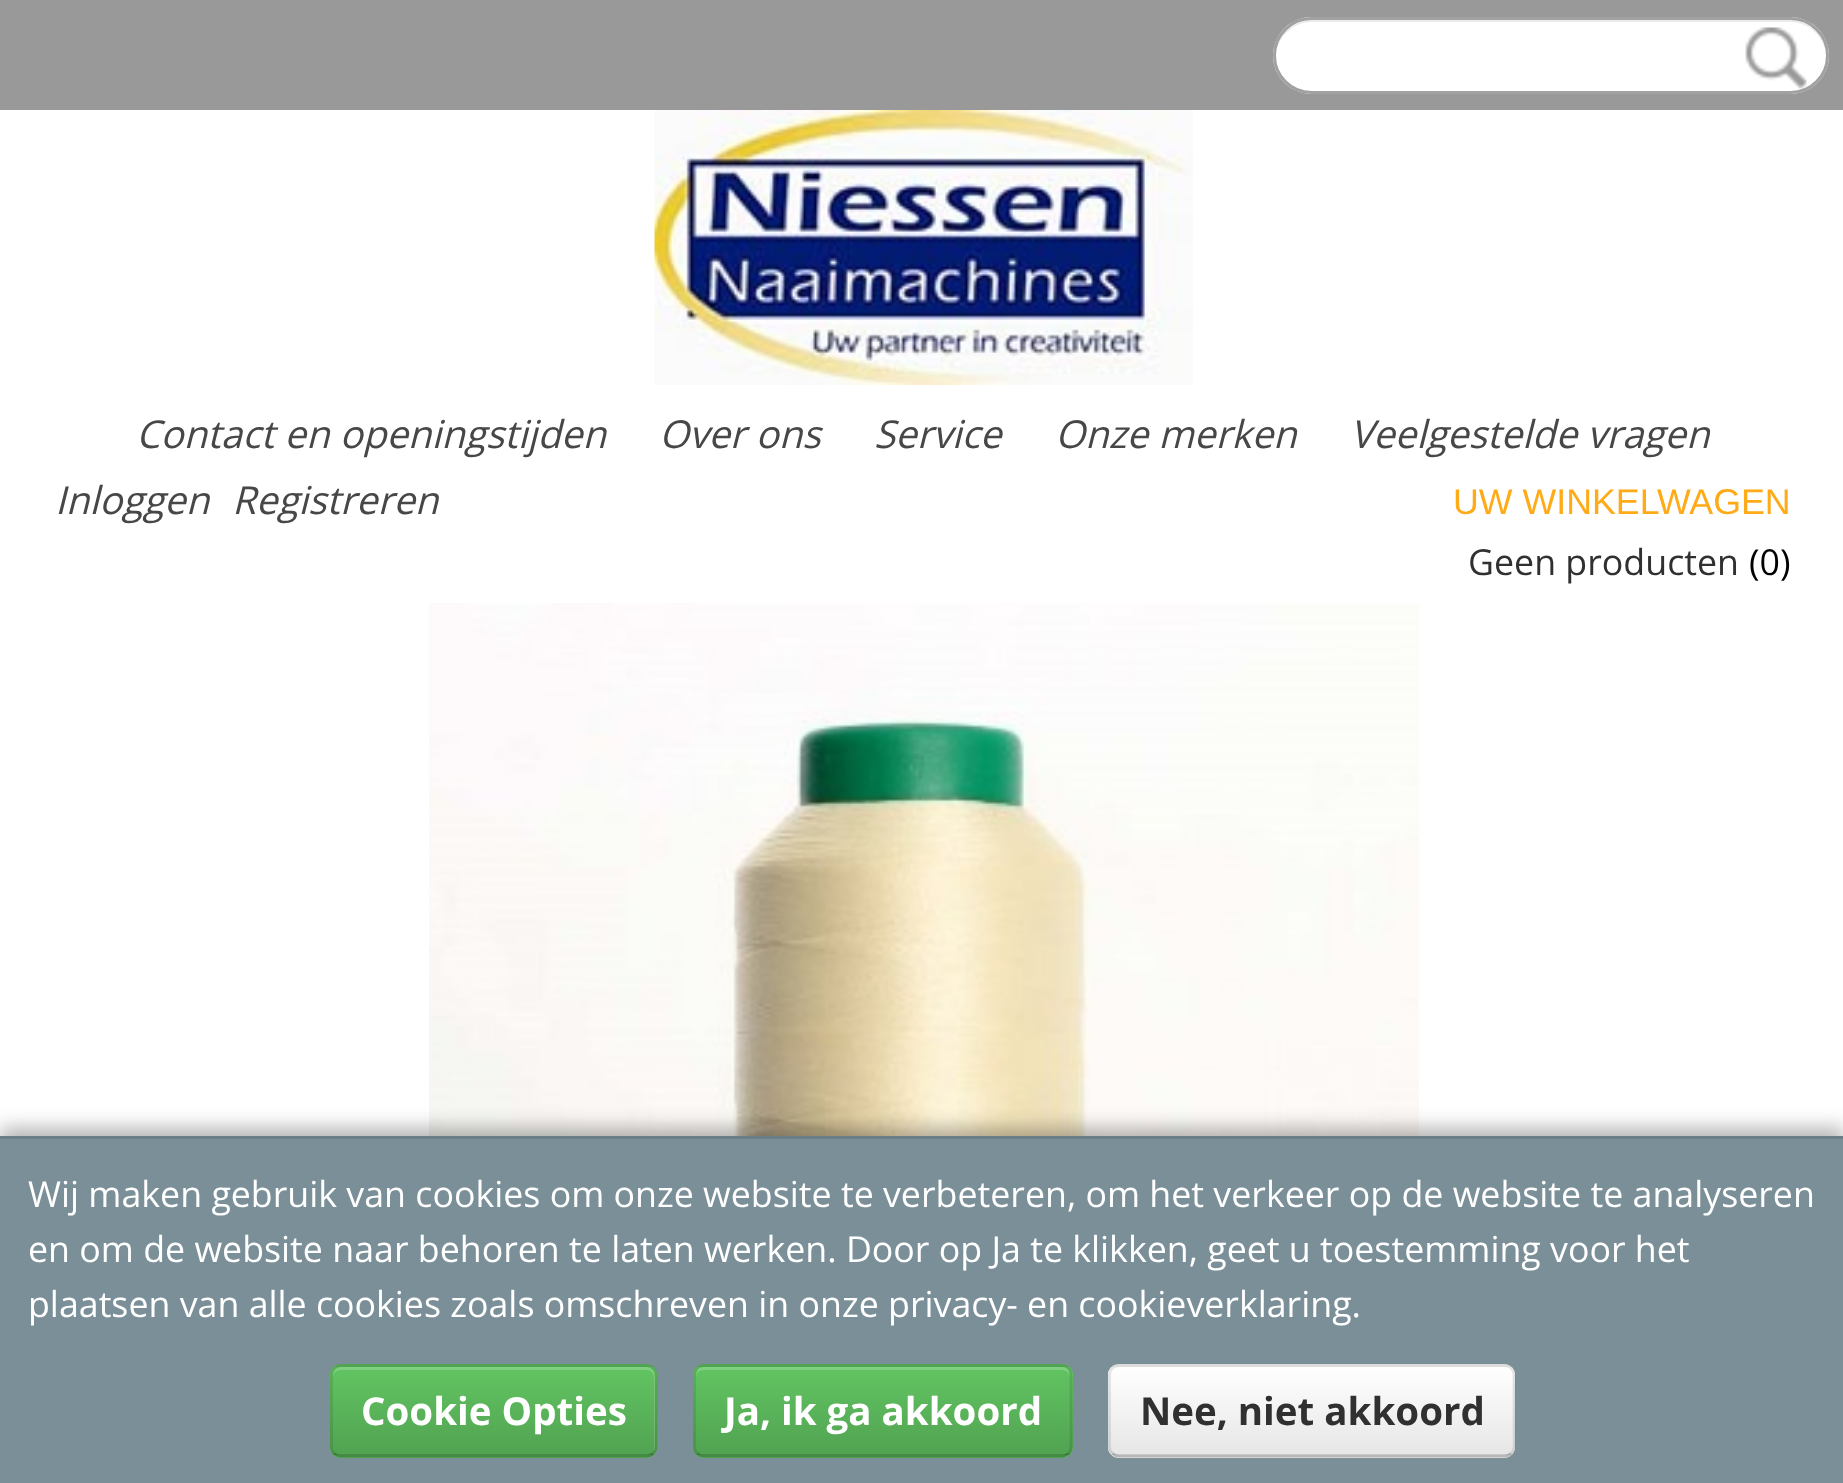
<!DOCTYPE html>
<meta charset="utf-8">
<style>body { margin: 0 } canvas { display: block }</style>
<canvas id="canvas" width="1843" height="1483"></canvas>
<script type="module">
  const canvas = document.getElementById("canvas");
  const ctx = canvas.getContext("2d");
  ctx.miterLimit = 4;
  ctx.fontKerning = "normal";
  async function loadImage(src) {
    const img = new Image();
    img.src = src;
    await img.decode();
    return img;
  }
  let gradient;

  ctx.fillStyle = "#ffffff";
  ctx.fillRect(0, 0, 1843, 1483);
  ctx.fillStyle = "#999999";
  ctx.fillRect(0, 0, 1843, 110);
  ctx.fillStyle = "#ffffff";
  ctx.beginPath();
  ctx.roundRect(1273, 17, 556, 77, 38.5);
  ctx.fill();
  ctx.fillStyle = "#ececec";
  ctx.beginPath();
  ctx.moveTo(1312, 22);
  ctx.lineTo(1790, 22);
  ctx.bezierCurveTo(1809, 22, 1825, 37, 1826, 56);
  ctx.bezierCurveTo(1827, 36, 1810, 19, 1790, 19);
  ctx.lineTo(1312, 19);
  ctx.bezierCurveTo(1292, 19, 1275, 36, 1276, 56);
  ctx.bezierCurveTo(1277, 37, 1293, 22, 1312, 22);
  ctx.closePath();
  ctx.fill();
  ctx.beginPath();
  ctx.roundRect(1274.5, 18.5, 553, 74, 37);
  ctx.strokeStyle = "#a1a1a1";
  ctx.lineWidth = 3;
  ctx.stroke();
  ctx.drawImage(await loadImage("img1.png"), 1745, 27, 62, 62);
  ctx.drawImage(await loadImage("img2.png"), 654, 110, 539, 275);
  ctx.font = "italic 38.5px Open Sans";
  ctx.fillStyle = "#474747";
  ctx.fillText("Contact en openingstijden", 136, 448);
  ctx.fillText("Over ons", 659, 448);
  ctx.fillText("Service", 874, 448);
  ctx.fillText("Onze merken", 1055, 448);
  ctx.fillText("Veelgestelde vragen", 1350, 448);
  ctx.fillText("Inloggen", 55, 514);
  ctx.fillText("Registreren", 232, 514);
  ctx.font = "35.75px Liberation Sans";
  ctx.fillStyle = "#ffaa17";
  ctx.fillText("UW WINKELWAGEN", 1453, 514);
  ctx.font = "35.75px Open Sans";
  ctx.fillStyle = "#303030";
  ctx.fillText("Geen producten", 1468, 575);
  ctx.fillStyle = "#000000";
  ctx.fillText("(0)", 1749, 575);
  ctx.drawImage(await loadImage("img3.png"), 429, 603, 990, 533);
  ctx.fillStyle = "rgba(0, 0, 0, 0.3)";
  ctx.filter = "blur(9.5px)";
  ctx.beginPath();
  ctx.rect(0, 1128, 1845, 349);
  ctx.fill();
  ctx.filter = "none";
  ctx.fillStyle = "#7a8f98";
  ctx.fillRect(0, 1139, 1843, 344);
  ctx.fillStyle = "#697e87";
  ctx.fillRect(0, 1136, 1843, 3);
  ctx.fillStyle = "#ffffff";
  ctx.fillText("Wij maken gebruik van cookies om onze website te verbeteren, om het verkeer op de website te analyseren", 28, 1207);
  ctx.fillText("en om de website naar behoren te laten werken. Door op Ja te klikken, geet u toestemming voor het", 28, 1262);
  ctx.fillText("plaatsen van alle cookies zoals omschreven in onze privacy- en cookieverklaring.", 28, 1317);
  ctx.fillStyle = "#5bb75b";
  ctx.beginPath();
  ctx.roundRect(330, 1364, 327, 94, 11);
  ctx.fill();
  ctx.save();
  ctx.beginPath();
  ctx.roundRect(330, 1364, 327, 94, 11);
  ctx.clip();
  gradient = ctx.createLinearGradient(494, 1367, 494, 1455);
  gradient.addColorStop(0, "#62c462");
  gradient.addColorStop(1, "#51a351");
  ctx.fillStyle = gradient;
  ctx.fillRect(330, 1367, 327, 88);
  ctx.restore();
  ctx.fillStyle = "rgba(255, 255, 255, 0.2)";
  ctx.beginPath();
  ctx.moveTo(341, 1370);
  ctx.lineTo(646, 1370);
  ctx.bezierCurveTo(651, 1370, 654, 1373, 654, 1378);
  ctx.lineTo(654, 1451);
  ctx.bezierCurveTo(655, 1450, 655, 1449, 655, 1447);
  ctx.lineTo(655, 1375);
  ctx.bezierCurveTo(655, 1371, 651, 1367, 647, 1367);
  ctx.lineTo(341, 1367);
  ctx.bezierCurveTo(337, 1367, 333, 1371, 333, 1375);
  ctx.lineTo(333, 1378);
  ctx.bezierCurveTo(333, 1373, 336, 1370, 341, 1370);
  ctx.closePath();
  ctx.fill();
  ctx.beginPath();
  ctx.moveTo(653, 1453.5);
  ctx.bezierCurveTo(651.5, 1455, 649, 1456, 646, 1456);
  ctx.lineTo(341, 1456);
  ctx.bezierCurveTo(338.5, 1456, 336, 1455, 334, 1453.5);
  ctx.strokeStyle = "rgba(0, 0, 0, 0.25)";
  ctx.lineWidth = 2.8;
  ctx.stroke();
  ctx.beginPath();
  ctx.moveTo(334, 1453.5);
  ctx.bezierCurveTo(332.5, 1451.5, 331.5, 1449, 331.5, 1446.5);
  ctx.lineTo(331.5, 1375);
  ctx.bezierCurveTo(331.5, 1372.5, 332.5, 1370, 334, 1368);
  ctx.bezierCurveTo(336, 1366.5, 338.5, 1365.5, 341, 1365.5);
  ctx.lineTo(646, 1365.5);
  ctx.bezierCurveTo(649, 1365.5, 651.5, 1366.5, 653, 1368);
  ctx.bezierCurveTo(655, 1370, 656, 1372.5, 656, 1375);
  ctx.lineTo(656, 1446.5);
  ctx.bezierCurveTo(656, 1449, 655, 1451.5, 653, 1453.5);
  ctx.strokeStyle = "rgba(0, 0, 0, 0.1)";
  ctx.stroke();
  ctx.font = "bold 38.5px Open Sans";
  ctx.fillStyle = "#ffffff";
  ctx.fillText("Cookie Opties", 361, 1425);
  ctx.fillStyle = "#5bb75b";
  ctx.beginPath();
  ctx.roundRect(693, 1364, 380, 94, 11);
  ctx.fill();
  ctx.save();
  ctx.beginPath();
  ctx.roundRect(693, 1364, 380, 94, 11);
  ctx.clip();
  gradient = ctx.createLinearGradient(883, 1367, 883, 1455);
  gradient.addColorStop(0, "#62c462");
  gradient.addColorStop(1, "#51a351");
  ctx.fillStyle = gradient;
  ctx.fillRect(693, 1367, 380, 88);
  ctx.restore();
  ctx.fillStyle = "rgba(255, 255, 255, 0.2)";
  ctx.beginPath();
  ctx.moveTo(704, 1370);
  ctx.lineTo(1062, 1370);
  ctx.bezierCurveTo(1066, 1370, 1070, 1373, 1070, 1378);
  ctx.bezierCurveTo(1070, 1373, 1069, 1368, 1064, 1367);
  ctx.lineTo(702, 1367);
  ctx.bezierCurveTo(697, 1368, 696, 1373, 696, 1378);
  ctx.bezierCurveTo(696, 1373, 699, 1370, 704, 1370);
  ctx.closePath();
  ctx.fill();
  ctx.beginPath();
  ctx.moveTo(1068.5, 1453.5);
  ctx.bezierCurveTo(1066.5, 1455, 1064, 1456, 1061.5, 1456);
  ctx.lineTo(704, 1456);
  ctx.bezierCurveTo(701.5, 1456, 699, 1455, 697, 1453.5);
  ctx.strokeStyle = "rgba(0, 0, 0, 0.25)";
  ctx.stroke();
  ctx.beginPath();
  ctx.moveTo(697, 1453.5);
  ctx.bezierCurveTo(695.5, 1451.5, 694.5, 1449, 694.5, 1446.5);
  ctx.lineTo(694.5, 1375);
  ctx.bezierCurveTo(694.5, 1372.5, 695.5, 1370, 697, 1368);
  ctx.bezierCurveTo(699, 1366.5, 701.5, 1365.5, 704, 1365.5);
  ctx.lineTo(1061.5, 1365.5);
  ctx.bezierCurveTo(1064, 1365.5, 1066.5, 1366.5, 1068.5, 1368);
  ctx.bezierCurveTo(1070, 1370, 1071, 1372.5, 1071, 1375);
  ctx.lineTo(1071, 1446.5);
  ctx.bezierCurveTo(1071, 1449, 1070, 1451.5, 1068.5, 1453.5);
  ctx.strokeStyle = "rgba(0, 0, 0, 0.1)";
  ctx.stroke();
  ctx.fillStyle = "#ffffff";
  ctx.fillText("Ja, ik ga akkoord", 724, 1425);
  ctx.fillStyle = "#f5f5f5";
  ctx.beginPath();
  ctx.roundRect(1108, 1364, 407, 94, 11);
  ctx.fill();
  ctx.save();
  ctx.beginPath();
  ctx.roundRect(1108, 1364, 407, 94, 11);
  ctx.clip();
  gradient = ctx.createLinearGradient(1312, 1367, 1312, 1455);
  gradient.addColorStop(0, "#ffffff");
  gradient.addColorStop(1, "#e6e6e6");
  ctx.fillStyle = gradient;
  ctx.fillRect(1108, 1367, 407, 88);
  ctx.restore();
  ctx.fillStyle = "rgba(255, 255, 255, 0.2)";
  ctx.beginPath();
  ctx.moveTo(1119, 1370);
  ctx.lineTo(1504, 1370);
  ctx.bezierCurveTo(1509, 1370, 1512, 1373, 1512, 1378);
  ctx.lineTo(1512, 1451);
  ctx.bezierCurveTo(1513, 1450, 1513, 1449, 1513, 1447);
  ctx.lineTo(1513, 1375);
  ctx.bezierCurveTo(1513, 1371, 1509, 1367, 1505, 1367);
  ctx.lineTo(1119, 1367);
  ctx.bezierCurveTo(1115, 1367, 1111, 1371, 1111, 1375);
  ctx.lineTo(1111, 1378);
  ctx.bezierCurveTo(1111, 1373, 1115, 1370, 1119, 1370);
  ctx.closePath();
  ctx.fill();
  ctx.beginPath();
  ctx.moveTo(1511, 1453.5);
  ctx.bezierCurveTo(1509.5, 1455, 1507, 1456, 1504, 1456);
  ctx.lineTo(1119, 1456);
  ctx.bezierCurveTo(1116.5, 1456, 1114, 1455, 1112.5, 1453.5);
  ctx.strokeStyle = "rgba(0, 0, 0, 0.25)";
  ctx.stroke();
  ctx.beginPath();
  ctx.moveTo(1112.5, 1453.5);
  ctx.bezierCurveTo(1110.5, 1451.5, 1109.5, 1449, 1109.5, 1446.5);
  ctx.lineTo(1109.5, 1375);
  ctx.bezierCurveTo(1109.5, 1372.5, 1110.5, 1370, 1112.5, 1368);
  ctx.bezierCurveTo(1114, 1366.5, 1116.5, 1365.5, 1119, 1365.5);
  ctx.lineTo(1504, 1365.5);
  ctx.bezierCurveTo(1507, 1365.5, 1509.5, 1366.5, 1511, 1368);
  ctx.bezierCurveTo(1513, 1370, 1514, 1372.5, 1514, 1375);
  ctx.lineTo(1514, 1446.5);
  ctx.bezierCurveTo(1514, 1449, 1513, 1451.5, 1511, 1453.5);
  ctx.strokeStyle = "rgba(0, 0, 0, 0.1)";
  ctx.stroke();
  ctx.fillStyle = "#303030";
  ctx.fillText("Nee, niet akkoord", 1140, 1425);
</script>
